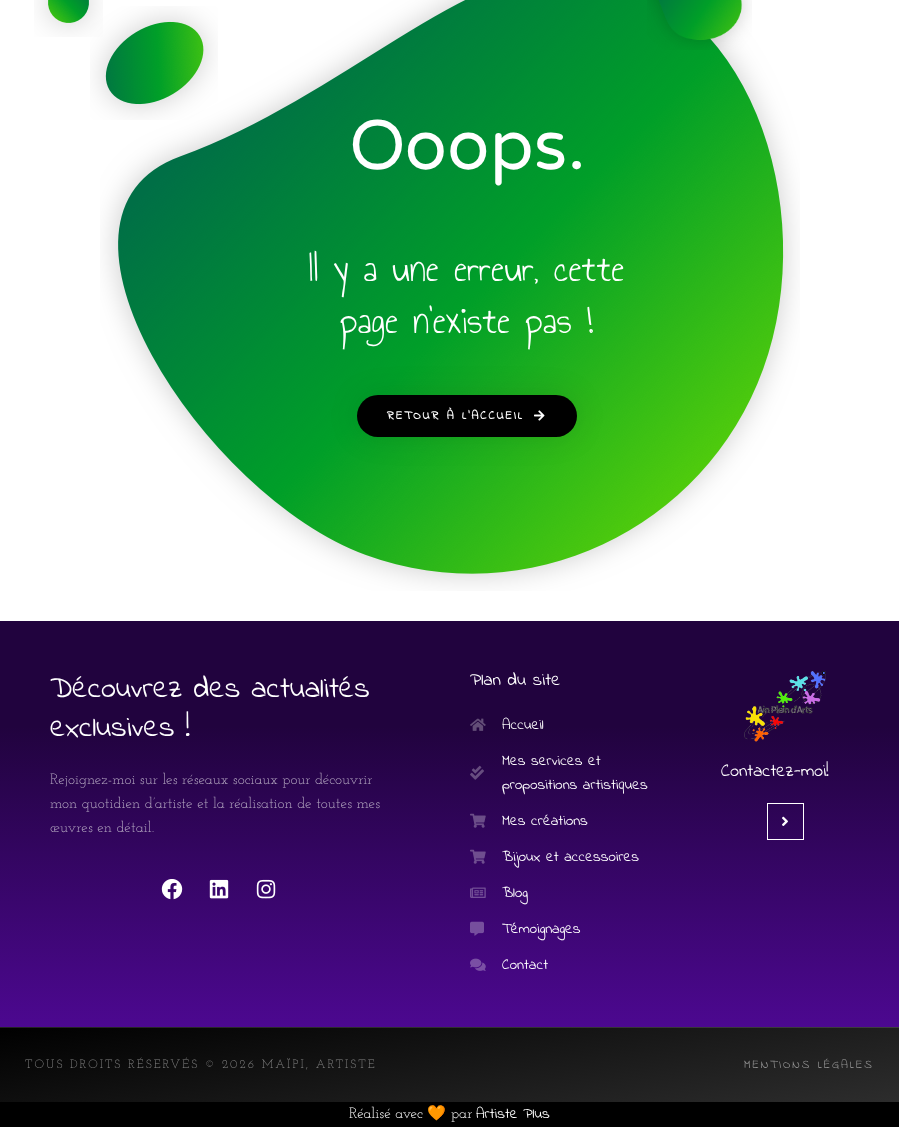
<!DOCTYPE html>
<meta charset="utf-8">
<style>body { margin: 0 } canvas { display: block }</style>
<canvas id="canvas" width="899" height="1127"></canvas>
<script type="module">
  const canvas = document.getElementById("canvas");
  const ctx = canvas.getContext("2d");
  ctx.miterLimit = 4;
  ctx.fontKerning = "normal";
  async function loadImage(src) {
    const img = new Image();
    img.src = src;
    await img.decode();
    return img;
  }
  let gradient;

  ctx.fillStyle = "#ffffff";
  ctx.fillRect(0, 0, 899, 1127);
  ctx.drawImage(await loadImage("img4.png"), 100, 0, 700, 591);
  ctx.drawImage(await loadImage("img2.png"), 90, 6, 128, 114);
  ctx.drawImage(await loadImage("img1.png"), 34, 0, 69, 37);
  ctx.drawImage(await loadImage("img3.png"), 647, 0, 105, 50);
  ctx.font = "70px Varela Round";
  ctx.fillText("Ooops.", 349, 169);
  ctx.font = "40px Annie Use Your Telescope";
  ctx.fillText("Il y a une erreur, cette", 309, 281);
  ctx.fillText("page n'existe pas !", 340, 333);
  ctx.fillStyle = "rgba(0, 0, 0, 0.1)";
  ctx.filter = "blur(15px)";
  ctx.beginPath();
  ctx.roundRect(357, 395, 220, 42, 21);
  ctx.fill();
  ctx.filter = "none";
  ctx.fillStyle = "#000000";
  ctx.beginPath();
  ctx.roundRect(357, 395, 220, 42, 21);
  ctx.fill();
  ctx.letterSpacing = "2px";
  ctx.font = "bold 12px Indie Flower";
  ctx.fillStyle = "#ffffff";
  ctx.fillText("RETOUR À L'ACCUEIL", 387, 419);
  ctx.drawImage(await loadImage("img5.png"), 534, 410, 11, 11);
  gradient = ctx.createLinearGradient(450, 621, 450, 1027);
  gradient.addColorStop(0.26, "#21033e");
  gradient.addColorStop(1, "#4c0890");
  ctx.fillStyle = gradient;
  ctx.fillRect(0, 621, 899, 406);
  ctx.letterSpacing = "0px";
  ctx.font = "30px Indie Flower";
  ctx.fillStyle = "#ffffff";
  ctx.fillText("Découvrez des actualités", 50, 697);
  ctx.fillText("exclusives !", 50, 736);
  ctx.font = "15px Josefin Slab";
  ctx.fillStyle = "#b2a5bf";
  ctx.fillText("Rejoignez-moi sur les réseaux sociaux pour découvrir", 50, 784);
  ctx.fillText("mon quotidien d’artiste et la réalisation de toutes mes", 50, 808);
  ctx.fillText("œuvres en détail.", 50, 832);
  ctx.drawImage(await loadImage("img6.png"), 161, 879, 22, 21);
  ctx.drawImage(await loadImage("img7.png"), 209, 879, 20, 20);
  ctx.drawImage(await loadImage("img8.png"), 256, 879, 20, 20);
  ctx.font = "18px Indie Flower";
  ctx.fillStyle = "#ffffff";
  ctx.fillText("Plan du site", 470, 685);
  ctx.drawImage(await loadImage("img9.png"), 470, 718, 16, 13);
  ctx.font = "15px Indie Flower";
  ctx.fillText("Accueil", 502, 729);
  ctx.drawImage(await loadImage("img10.png"), 470, 765, 14, 15);
  ctx.fillText("Mes services et", 502, 765);
  ctx.fillText("propositions artistiques", 502, 789);
  ctx.drawImage(await loadImage("img11.png"), 470, 813, 16, 15);
  ctx.fillText("Mes créations", 502, 825);
  ctx.drawImage(await loadImage("img12.png"), 470, 849, 16, 15);
  ctx.fillText("Bijoux et accessoires", 502, 861);
  ctx.drawImage(await loadImage("img13.png"), 470, 887, 16, 11);
  ctx.fillText("Blog", 502, 897);
  ctx.drawImage(await loadImage("img14.png"), 470, 921, 14, 15);
  ctx.fillText("Témoignages", 502, 933);
  ctx.drawImage(await loadImage("img15.png"), 470, 958, 16, 13);
  ctx.fillText("Contact", 502, 969);
  ctx.drawImage(await loadImage("img16.png"), 744, 671, 82, 71);
  ctx.font = "18px Indie Flower";
  ctx.fillText("Contactez-moi!", 721, 776);
  ctx.strokeStyle = "#ffffff";
  ctx.strokeRect(767.5, 803.5, 36, 36);
  ctx.drawImage(await loadImage("img17.png"), 782, 816, 6, 10);
  gradient = ctx.createLinearGradient(430, 878, 469, 1104);
  gradient.addColorStop(0, "#141414");
  gradient.addColorStop(1, "#3e3e3e");
  ctx.fillStyle = gradient;
  ctx.fillRect(0, 1027, 899, 1);
  gradient = ctx.createLinearGradient(430, 952, 469, 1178);
  gradient.addColorStop(0, "#000000");
  gradient.addColorStop(1, "#2d2d2d");
  ctx.fillStyle = gradient;
  ctx.fillRect(0, 1028, 899, 74);
  ctx.letterSpacing = "2px";
  ctx.font = "12px Josefin Slab";
  ctx.fillStyle = "#868686";
  ctx.fillText("TOUS DROITS RÉSERVÉS © 2026 MAÏPI, ARTISTE", 25, 1068);
  ctx.font = "12px Indie Flower";
  ctx.fillStyle = "#919191";
  ctx.fillText("MENTIONS LÉGALES", 744, 1068);
  ctx.fillStyle = "#000000";
  ctx.fillRect(0, 1102, 899, 25);
  ctx.letterSpacing = "0px";
  ctx.font = "15px Josefin Slab";
  ctx.fillStyle = "#ffffff";
  ctx.fillText("Réalisé avec", 349, 1118);
  ctx.font = "15px Noto Color Emoji";
  ctx.fillText("🧡", 427, 1118);
  ctx.font = "15px Josefin Slab";
  ctx.fillText("par", 451, 1118);
  ctx.font = "15px Indie Flower";
  ctx.fillText("Artiste Plus", 476, 1118);
</script>
